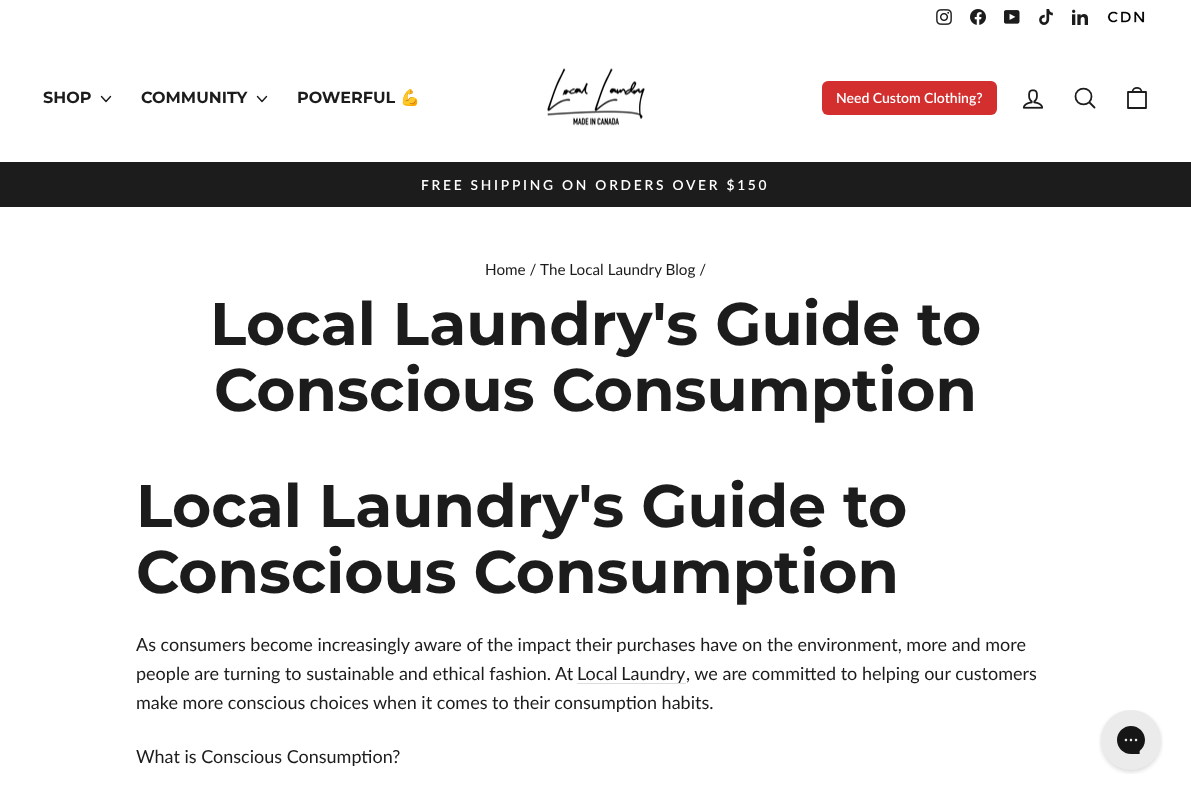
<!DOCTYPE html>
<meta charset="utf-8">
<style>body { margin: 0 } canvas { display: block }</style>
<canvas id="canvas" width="1191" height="797"></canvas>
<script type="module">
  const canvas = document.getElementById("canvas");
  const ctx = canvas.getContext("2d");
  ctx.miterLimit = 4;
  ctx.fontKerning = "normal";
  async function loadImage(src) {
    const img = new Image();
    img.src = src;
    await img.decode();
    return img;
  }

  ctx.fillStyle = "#ffffff";
  ctx.fillRect(0, 0, 1191, 797);
  ctx.drawImage(await loadImage("img1.png"), 936, 9, 16, 16);
  ctx.drawImage(await loadImage("img2.png"), 970, 9, 16, 16);
  ctx.drawImage(await loadImage("img3.png"), 1004, 10, 16, 14);
  ctx.drawImage(await loadImage("img4.png"), 1039, 9, 14, 16);
  ctx.drawImage(await loadImage("img5.png"), 1072, 9, 16, 16);
  ctx.drawImage(await loadImage("img6.png"), 1107, 11, 38, 12);
  ctx.font = "bold 16px Montserrat";
  ctx.fillStyle = "#1c1c1c";
  ctx.fillText("SHOP", 43, 103);
  ctx.beginPath();
  ctx.moveTo(101.5, 96.5);
  ctx.lineTo(106, 101.5);
  ctx.lineTo(110.5, 96.5);
  ctx.strokeStyle = "#1c1c1c";
  ctx.lineWidth = 1.4;
  ctx.lineCap = "round";
  ctx.lineJoin = "round";
  ctx.stroke();
  ctx.fillText("COMMUNITY", 141, 103);
  ctx.beginPath();
  ctx.moveTo(257.5, 96.5);
  ctx.lineTo(262, 101.5);
  ctx.lineTo(266.5, 96.5);
  ctx.stroke();
  ctx.fillText("POWERFUL", 297, 103);
  ctx.font = "bold 16px Noto Color Emoji";
  ctx.fillText("💪", 400, 103);
  ctx.drawImage(await loadImage("img7.png"), 547, 68, 98, 58);
  ctx.fillStyle = "#d32f2f";
  ctx.beginPath();
  ctx.roundRect(822, 81, 175, 34, 6);
  ctx.fill();
  ctx.font = "600 14px Lato";
  ctx.fillStyle = "#ffffff";
  ctx.fillText("Need Custom Clothing?", 836, 103);
  ctx.drawImage(await loadImage("img8.png"), 1022, 89, 22, 20);
  ctx.beginPath();
  ctx.moveTo(1091.5, 96.5);
  ctx.bezierCurveTo(1091.5, 107, 1075.5, 107, 1075.5, 96.5);
  ctx.bezierCurveTo(1075.5, 86, 1091.5, 86, 1091.5, 96.5);
  ctx.closePath();
  ctx.moveTo(1094.5, 107.5);
  ctx.lineTo(1089.5, 102.5);
  ctx.lineWidth = 1.8;
  ctx.stroke();
  ctx.beginPath();
  ctx.moveTo(1128, 92);
  ctx.lineTo(1146, 92);
  ctx.lineTo(1146, 108);
  ctx.lineTo(1128, 108);
  ctx.closePath();
  ctx.moveTo(1132.5, 92);
  ctx.bezierCurveTo(1132.5, 86.5, 1141.5, 86.5, 1141.5, 92);
  ctx.stroke();
  ctx.fillStyle = "#1c1c1c";
  ctx.fillRect(0, 162, 1191, 45);
  ctx.letterSpacing = "2.75px";
  ctx.font = "600 13.75px Lato";
  ctx.fillStyle = "#ffffff";
  ctx.fillText("FREE SHIPPING ON ORDERS OVER $150", 421, 190);
  ctx.letterSpacing = "0px";
  ctx.font = "15.25px Lato";
  ctx.fillStyle = "#1c1c1c";
  ctx.fillText("Home /", 485, 275);
  ctx.fillText("The Local Laundry Blog /", 540, 275);
  ctx.font = "bold 60px Montserrat";
  ctx.fillText("Local Laundry's Guide to", 210, 345);
  ctx.fillText("Conscious Consumption", 214, 411);
  ctx.fillText("Local Laundry's Guide to", 136, 527);
  ctx.fillText("Conscious Consumption", 136, 593);
  ctx.font = "18px Lato";
  ctx.fillText("As consumers become increasingly aware of the impact their purchases have on the environment, more and more", 136, 651);
  ctx.fillText("people are turning to sustainable and ethical fashion. At", 136, 680);
  ctx.fillStyle = "#dddddd";
  ctx.fillRect(577, 683, 109, 1);
  ctx.wordSpacing = "-1px";
  ctx.fillStyle = "#1c1c1c";
  ctx.fillText("Local Laundry", 577, 680);
  ctx.wordSpacing = "0px";
  ctx.fillText(", we are committed to helping our customers", 686, 680);
  ctx.fillText("make more conscious choices when it comes to their consumption habits.", 136, 709);
  ctx.fillText("What is Conscious Consumption?", 136, 763);
  ctx.drawImage(await loadImage("img9.png"), 1099, 710, 64, 64);
</script>
